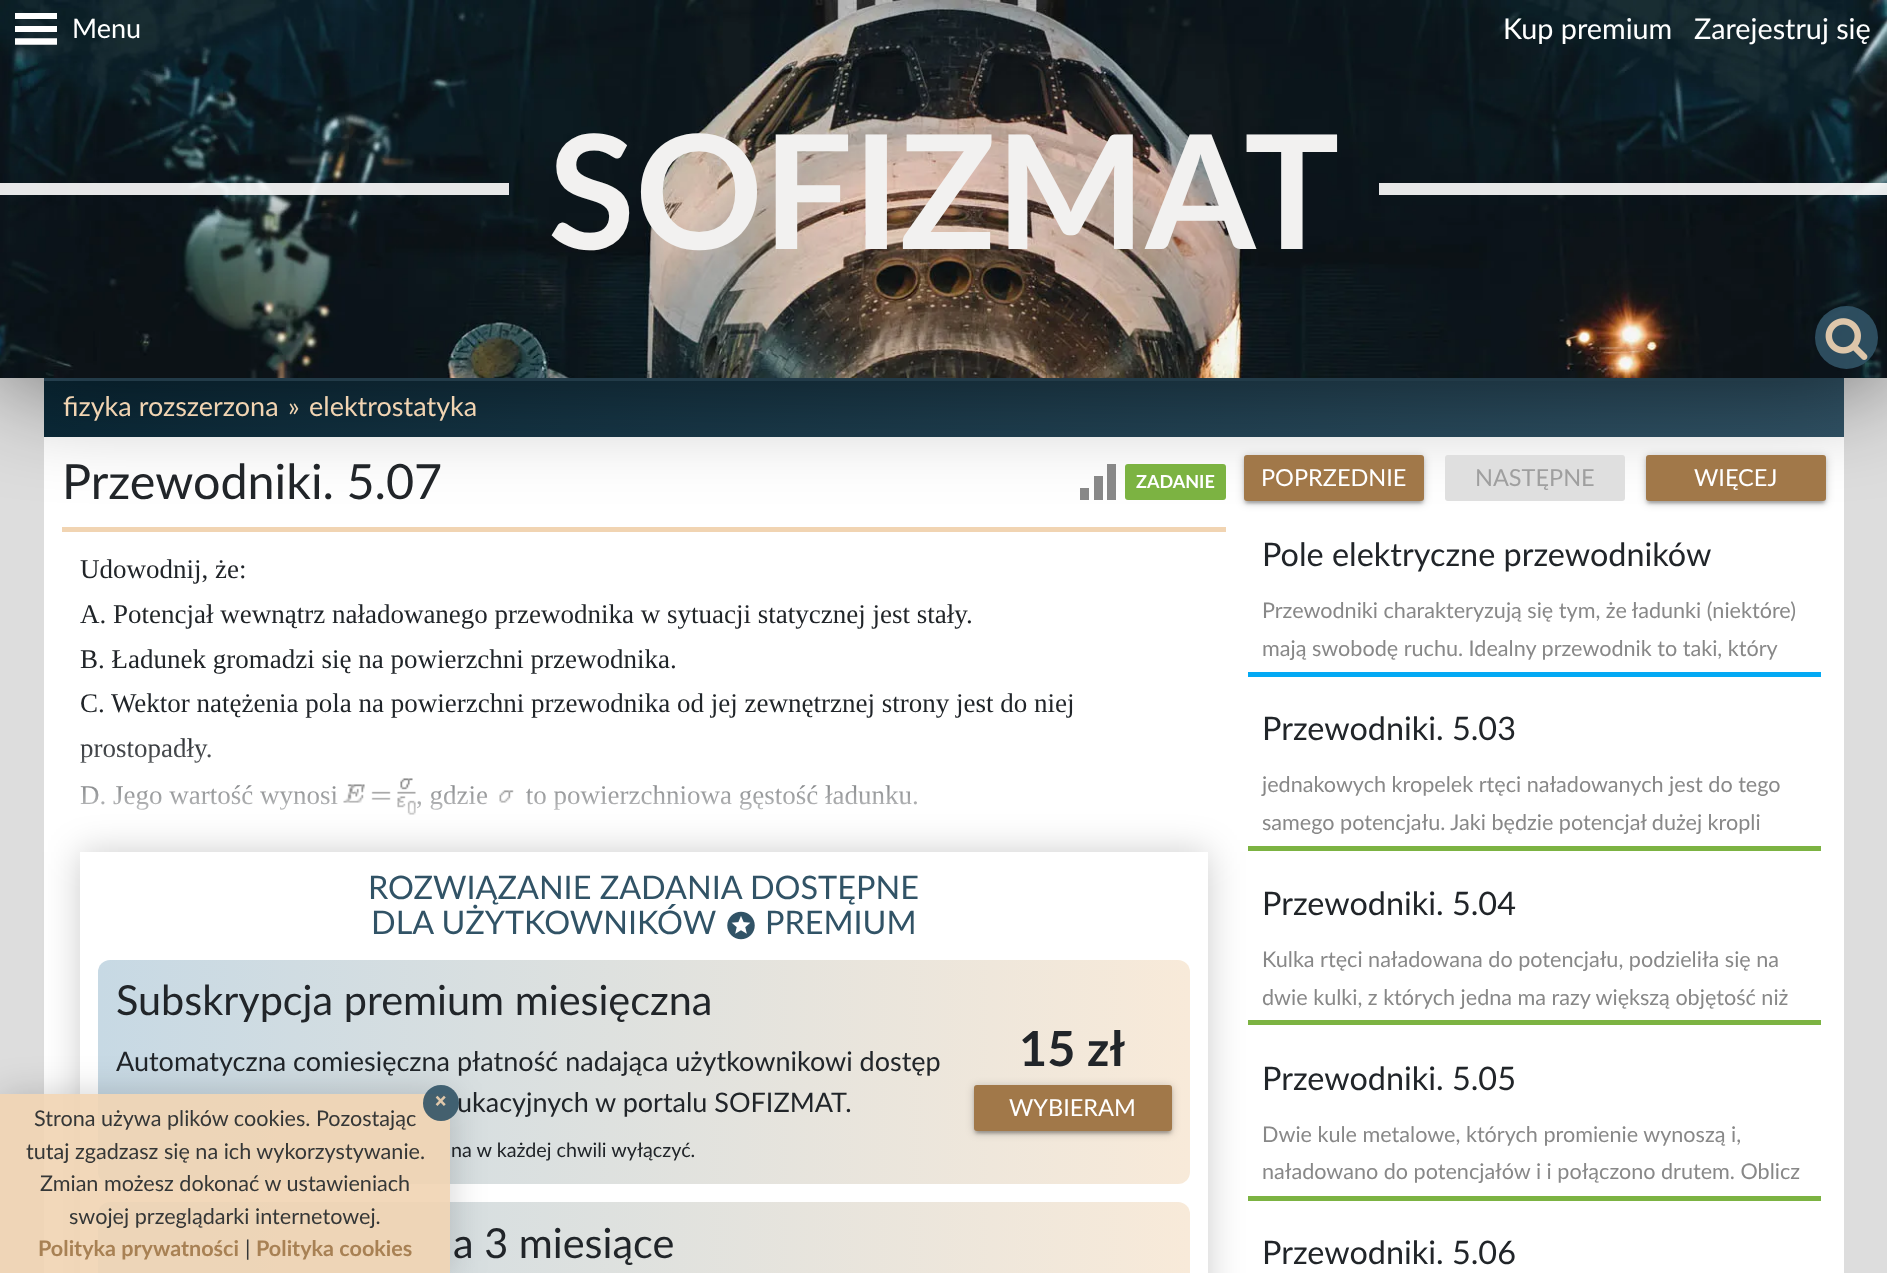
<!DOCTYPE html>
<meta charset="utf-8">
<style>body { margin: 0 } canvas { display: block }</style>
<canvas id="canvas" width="1887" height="1273"></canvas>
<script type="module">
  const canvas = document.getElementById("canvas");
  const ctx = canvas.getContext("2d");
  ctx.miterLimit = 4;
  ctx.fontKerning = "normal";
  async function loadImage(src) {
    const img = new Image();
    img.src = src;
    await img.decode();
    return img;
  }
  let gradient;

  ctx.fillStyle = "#dddddd";
  ctx.fillRect(0, 0, 1887, 1273);
  ctx.fillStyle = "#ffffff";
  ctx.fillRect(44, 437, 1800, 836);
  gradient = ctx.createLinearGradient(1844, 407, 44, 407);
  gradient.addColorStop(0, "#315366");
  gradient.addColorStop(1, "#0b2a39");
  ctx.fillStyle = gradient;
  ctx.fillRect(44, 381, 1800, 56);
  ctx.fillStyle = "#315366";
  ctx.fillRect(44, 378, 1800, 3);
  ctx.fillStyle = "rgba(0, 0, 0, 0.6)";
  ctx.filter = "blur(54px)";
  ctx.beginPath();
  ctx.rect(0, 0, 1887, 378);
  ctx.fill();
  ctx.filter = "none";
  ctx.drawImage(await loadImage("img1.png"), 0, 0, 1887, 378);
  ctx.fillStyle = "#ffffff";
  ctx.fillRect(15, 13, 42, 6);
  ctx.fillRect(15, 26, 42, 6);
  ctx.beginPath();
  ctx.moveTo(15, 41.5);
  ctx.lineTo(57, 41.5);
  ctx.strokeStyle = "#ffffff";
  ctx.lineWidth = 6.3;
  ctx.stroke();
  ctx.font = "27px Lato";
  ctx.fillText("Menu", 72, 38);
  ctx.font = "28.75px Lato";
  ctx.fillText("Kup premium", 1503, 39);
  ctx.fillText("Zarejestruj się", 1694, 39);
  ctx.fillStyle = "rgba(255, 255, 255, 0.9)";
  ctx.fillRect(0, 183, 509, 12);
  ctx.font = "bold 158.5px Lato";
  ctx.fillStyle = "#f2f1f0";
  ctx.fillText("SOFIZMAT", 548, 249);
  ctx.fillStyle = "rgba(255, 255, 255, 0.9)";
  ctx.fillRect(1379, 183, 508, 12);
  ctx.fillStyle = "rgba(49, 83, 102, 0.9)";
  ctx.beginPath();
  ctx.arc(1846.5, 337.5, 31.5, 0, Math.PI * 2);
  ctx.fill();
  ctx.drawImage(await loadImage("img2.png"), 1825, 318, 43, 42);
  ctx.font = "27px Lato";
  ctx.fillStyle = "#f1d4b2";
  ctx.fillText("fizyka rozszerzona", 63, 416);
  ctx.fillText("»", 288, 416);
  ctx.fillText("elektrostatyka", 309, 416);
  ctx.fillRect(62, 527, 1164, 5);
  ctx.font = "48.5px Lato";
  ctx.fillStyle = "#212529";
  ctx.fillText("Przewodniki. 5.07", 62, 499);
  ctx.fillStyle = "#888888";
  ctx.fillRect(1080, 488, 9, 12);
  ctx.fillRect(1094, 476, 9, 24);
  ctx.fillRect(1107, 464, 9, 36);
  ctx.fillStyle = "#7cb342";
  ctx.beginPath();
  ctx.roundRect(1125, 464, 101, 36, 3);
  ctx.fill();
  ctx.font = "bold 18px Lato";
  ctx.fillStyle = "#ffffff";
  ctx.fillText("ZADANIE", 1136, 488);
  ctx.font = "27px Liberation Serif";
  ctx.fillStyle = "#212529";
  ctx.fillText("Udowodnij, że:", 80, 578);
  ctx.fillText("A. Potencjał wewnątrz naładowanego przewodnika w sytuacji statycznej jest stały.", 80, 623);
  ctx.fillText("B. Ładunek gromadzi się na powierzchni przewodnika.", 80, 668);
  ctx.fillText("C. Wektor natężenia pola na powierzchni przewodnika od jej zewnętrznej strony jest do niej", 80, 712);
  ctx.fillText("prostopadły.", 80, 757);
  ctx.fillText("D. Jego wartość wynosi", 80, 804);
  ctx.drawImage(await loadImage("img3.png"), 343, 778, 73, 37);
  ctx.fillText(", gdzie", 416, 804);
  ctx.drawImage(await loadImage("img4.png"), 499, 790, 15, 13);
  ctx.fillText(" to powierzchniowa gęstość ładunku.", 519, 804);
  gradient = ctx.createLinearGradient(644, 735, 644, 843);
  gradient.addColorStop(0, "rgba(255, 255, 255, 0)");
  gradient.addColorStop(1, "#ffffff");
  ctx.fillStyle = gradient;
  ctx.fillRect(80, 738, 858, 77);
  ctx.fillStyle = "rgba(0, 0, 0, 0.2)";
  ctx.filter = "blur(18px)";
  ctx.beginPath();
  ctx.rect(80, 852, 1128, 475);
  ctx.fill();
  ctx.filter = "none";
  ctx.fillStyle = "#ffffff";
  ctx.fillRect(80, 852, 1128, 421);
  ctx.font = "32.4px Lato";
  ctx.fillStyle = "#315366";
  ctx.fillText("ROZWIĄZANIE ZADANIA DOSTĘPNE", 368, 899);
  ctx.fillText("DLA UŻYTKOWNIKÓW", 371, 934);
  ctx.drawImage(await loadImage("img5.png"), 727, 911, 28, 29);
  ctx.fillText("PREMIUM", 765, 934);
  gradient = ctx.createLinearGradient(98, 1072, 1190, 1072);
  gradient.addColorStop(0, "#c7d9e4");
  gradient.addColorStop(1, "#f8ead9");
  ctx.fillStyle = gradient;
  ctx.beginPath();
  ctx.roundRect(98, 960, 1092, 224, 12);
  ctx.fill();
  ctx.font = "41.4px Lato";
  ctx.fillStyle = "#212529";
  ctx.fillText("Subskrypcja premium miesięczna", 116, 1015);
  ctx.font = "27px Lato";
  ctx.fillText("Automatyczna comiesięczna płatność nadająca użytkownikowi dostęp", 116, 1071);
  ctx.fillText("ukacyjnych w portalu SOFIZMAT.", 457, 1112);
  ctx.font = "19.75px Lato";
  ctx.fillText("na w każdej chwili wyłączyć.", 451, 1157);
  ctx.font = "bold 48.5px Lato";
  ctx.fillText("15 zł", 1019, 1066);
  ctx.fillStyle = "rgba(0, 0, 0, 0.2)";
  ctx.filter = "blur(4px)";
  ctx.beginPath();
  ctx.roundRect(974, 1086, 198, 47, 3);
  ctx.fill();
  ctx.filter = "none";
  ctx.fillStyle = "rgba(0, 0, 0, 0.12)";
  ctx.filter = "blur(1px)";
  ctx.beginPath();
  ctx.rect(977, 1092, 192, 41);
  ctx.fill();
  ctx.filter = "none";
  ctx.fillStyle = "rgba(0, 0, 0, 0.14)";
  ctx.filter = "blur(1.5px)";
  ctx.beginPath();
  ctx.roundRect(974, 1088, 198, 46, 3);
  ctx.fill();
  ctx.filter = "none";
  ctx.fillStyle = "#a17849";
  ctx.beginPath();
  ctx.roundRect(974, 1085, 198, 46, 3);
  ctx.fill();
  ctx.font = "23.5px Lato";
  ctx.fillStyle = "#ffffff";
  ctx.fillText("WYBIERAM", 1009, 1116);
  gradient = ctx.createLinearGradient(98, 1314, 1190, 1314);
  gradient.addColorStop(0, "#c7d9e4");
  gradient.addColorStop(1, "#f8ead9");
  ctx.fillStyle = gradient;
  ctx.beginPath();
  ctx.roundRect(98, 1202, 1092, 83, 12);
  ctx.fill();
  ctx.font = "41.4px Lato";
  ctx.fillStyle = "#212529";
  ctx.fillText("a 3 miesiące", 453, 1258);
  ctx.fillStyle = "rgba(0, 0, 0, 0.2)";
  ctx.filter = "blur(4px)";
  ctx.beginPath();
  ctx.roundRect(1244, 456, 180, 47, 3);
  ctx.fill();
  ctx.filter = "none";
  ctx.fillStyle = "rgba(0, 0, 0, 0.12)";
  ctx.filter = "blur(1px)";
  ctx.beginPath();
  ctx.rect(1247, 462, 174, 41);
  ctx.fill();
  ctx.filter = "none";
  ctx.fillStyle = "rgba(0, 0, 0, 0.14)";
  ctx.filter = "blur(1.5px)";
  ctx.beginPath();
  ctx.roundRect(1244, 458, 180, 46, 3);
  ctx.fill();
  ctx.filter = "none";
  ctx.fillStyle = "#a17849";
  ctx.beginPath();
  ctx.roundRect(1244, 455, 180, 46, 3);
  ctx.fill();
  ctx.font = "23.5px Lato";
  ctx.fillStyle = "#ffffff";
  ctx.fillText("POPRZEDNIE", 1261, 486);
  ctx.fillStyle = "#dfdfdf";
  ctx.beginPath();
  ctx.roundRect(1445, 455, 180, 46, 3);
  ctx.fill();
  ctx.fillStyle = "#9f9f9f";
  ctx.fillText("NASTĘPNE", 1475, 486);
  ctx.fillStyle = "rgba(0, 0, 0, 0.2)";
  ctx.filter = "blur(4px)";
  ctx.beginPath();
  ctx.roundRect(1646, 456, 180, 47, 3);
  ctx.fill();
  ctx.filter = "none";
  ctx.fillStyle = "rgba(0, 0, 0, 0.12)";
  ctx.filter = "blur(1px)";
  ctx.beginPath();
  ctx.rect(1649, 462, 174, 41);
  ctx.fill();
  ctx.filter = "none";
  ctx.fillStyle = "rgba(0, 0, 0, 0.14)";
  ctx.filter = "blur(1.5px)";
  ctx.beginPath();
  ctx.roundRect(1646, 458, 180, 46, 3);
  ctx.fill();
  ctx.filter = "none";
  ctx.fillStyle = "#a17849";
  ctx.beginPath();
  ctx.roundRect(1646, 455, 180, 46, 3);
  ctx.fill();
  ctx.fillStyle = "#ffffff";
  ctx.fillText("WIĘCEJ", 1694, 486);
  ctx.fillStyle = "#03a9f4";
  ctx.fillRect(1248, 672, 573, 5);
  ctx.font = "32.4px Lato";
  ctx.fillStyle = "#212529";
  ctx.fillText("Pole elektryczne przewodników", 1262, 566);
  ctx.font = "21.6px Lato";
  ctx.fillStyle = "#888888";
  ctx.fillText("Przewodniki charakteryzują się tym, że ładunki (niektóre)", 1262, 618);
  ctx.fillText("mają swobodę ruchu. Idealny przewodnik to taki, który", 1262, 656);
  ctx.fillStyle = "#7cb342";
  ctx.fillRect(1248, 846, 573, 5);
  ctx.font = "32.4px Lato";
  ctx.fillStyle = "#212529";
  ctx.fillText("Przewodniki. 5.03", 1262, 740);
  ctx.font = "21.6px Lato";
  ctx.fillStyle = "#888888";
  ctx.fillText("jednakowych kropelek rtęci naładowanych jest do tego", 1262, 792);
  ctx.fillText("samego potencjału. Jaki będzie potencjał dużej kropli", 1262, 830);
  ctx.fillStyle = "#7cb342";
  ctx.fillRect(1248, 1020, 573, 5);
  ctx.font = "32.4px Lato";
  ctx.fillStyle = "#212529";
  ctx.fillText("Przewodniki. 5.04", 1262, 915);
  ctx.font = "21.6px Lato";
  ctx.fillStyle = "#888888";
  ctx.fillText("Kulka rtęci naładowana do potencjału, podzieliła się na", 1262, 967);
  ctx.fillText("dwie kulki, z których jedna ma razy większą objętość niż", 1262, 1005);
  ctx.fillStyle = "#7cb342";
  ctx.fillRect(1248, 1196, 573, 5);
  ctx.font = "32.4px Lato";
  ctx.fillStyle = "#212529";
  ctx.fillText("Przewodniki. 5.05", 1262, 1090);
  ctx.font = "21.6px Lato";
  ctx.fillStyle = "#888888";
  ctx.fillText("Dwie kule metalowe, których promienie wynoszą i,", 1262, 1142);
  ctx.fillText("naładowano do potencjałów i i połączono drutem. Oblicz", 1262, 1179);
  ctx.font = "32.4px Lato";
  ctx.fillStyle = "#212529";
  ctx.fillText("Przewodniki. 5.06", 1262, 1264);
  ctx.save();
  ctx.beginPath();
  ctx.moveTo(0, 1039);
  ctx.lineTo(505, 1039);
  ctx.lineTo(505, 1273);
  ctx.lineTo(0, 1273);
  ctx.closePath();
  ctx.moveTo(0, 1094);
  ctx.lineTo(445, 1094);
  ctx.bezierCurveTo(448, 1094, 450, 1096, 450, 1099);
  ctx.lineTo(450, 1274);
  ctx.lineTo(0, 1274);
  ctx.closePath();
  ctx.clip("evenodd");
  ctx.fillStyle = "rgba(0, 0, 0, 0.18)";
  ctx.filter = "blur(18px)";
  ctx.beginPath();
  ctx.roundRect(0, 1094, 450, 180, 5);
  ctx.fill();
  ctx.filter = "none";
  ctx.restore();
  ctx.fillStyle = "rgba(241, 212, 178, 0.9)";
  ctx.beginPath();
  ctx.moveTo(0, 1094);
  ctx.lineTo(445, 1094);
  ctx.bezierCurveTo(448, 1094, 450, 1096, 450, 1099);
  ctx.lineTo(450, 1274);
  ctx.lineTo(0, 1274);
  ctx.closePath();
  ctx.fill();
  ctx.fillStyle = "rgba(49, 83, 102, 0.9)";
  ctx.beginPath();
  ctx.arc(441, 1103, 18, 0, Math.PI * 2);
  ctx.fill();
  ctx.font = "bold 21.6px Roboto";
  ctx.fillStyle = "#e0c8ab";
  ctx.fillText("×", 435, 1108);
  ctx.font = "21.6px Lato";
  ctx.fillStyle = "#353737";
  ctx.fillText("Strona używa plików cookies. Pozostając", 34, 1126);
  ctx.fillText("tutaj zgadzasz się na ich wykorzystywanie.", 26, 1159);
  ctx.fillText("Zmian możesz dokonać w ustawieniach", 40, 1191);
  ctx.fillText("swojej przeglądarki internetowej.", 69, 1224);
  ctx.font = "bold 21.6px Lato";
  ctx.fillStyle = "#a88154";
  ctx.fillText("Polityka prywatności", 38, 1256);
  ctx.font = "21.6px Lato";
  ctx.fillStyle = "#353737";
  ctx.fillText("|", 245, 1256);
  ctx.font = "bold 21.6px Lato";
  ctx.fillStyle = "#a88154";
  ctx.fillText("Polityka cookies", 256, 1256);
</script>
